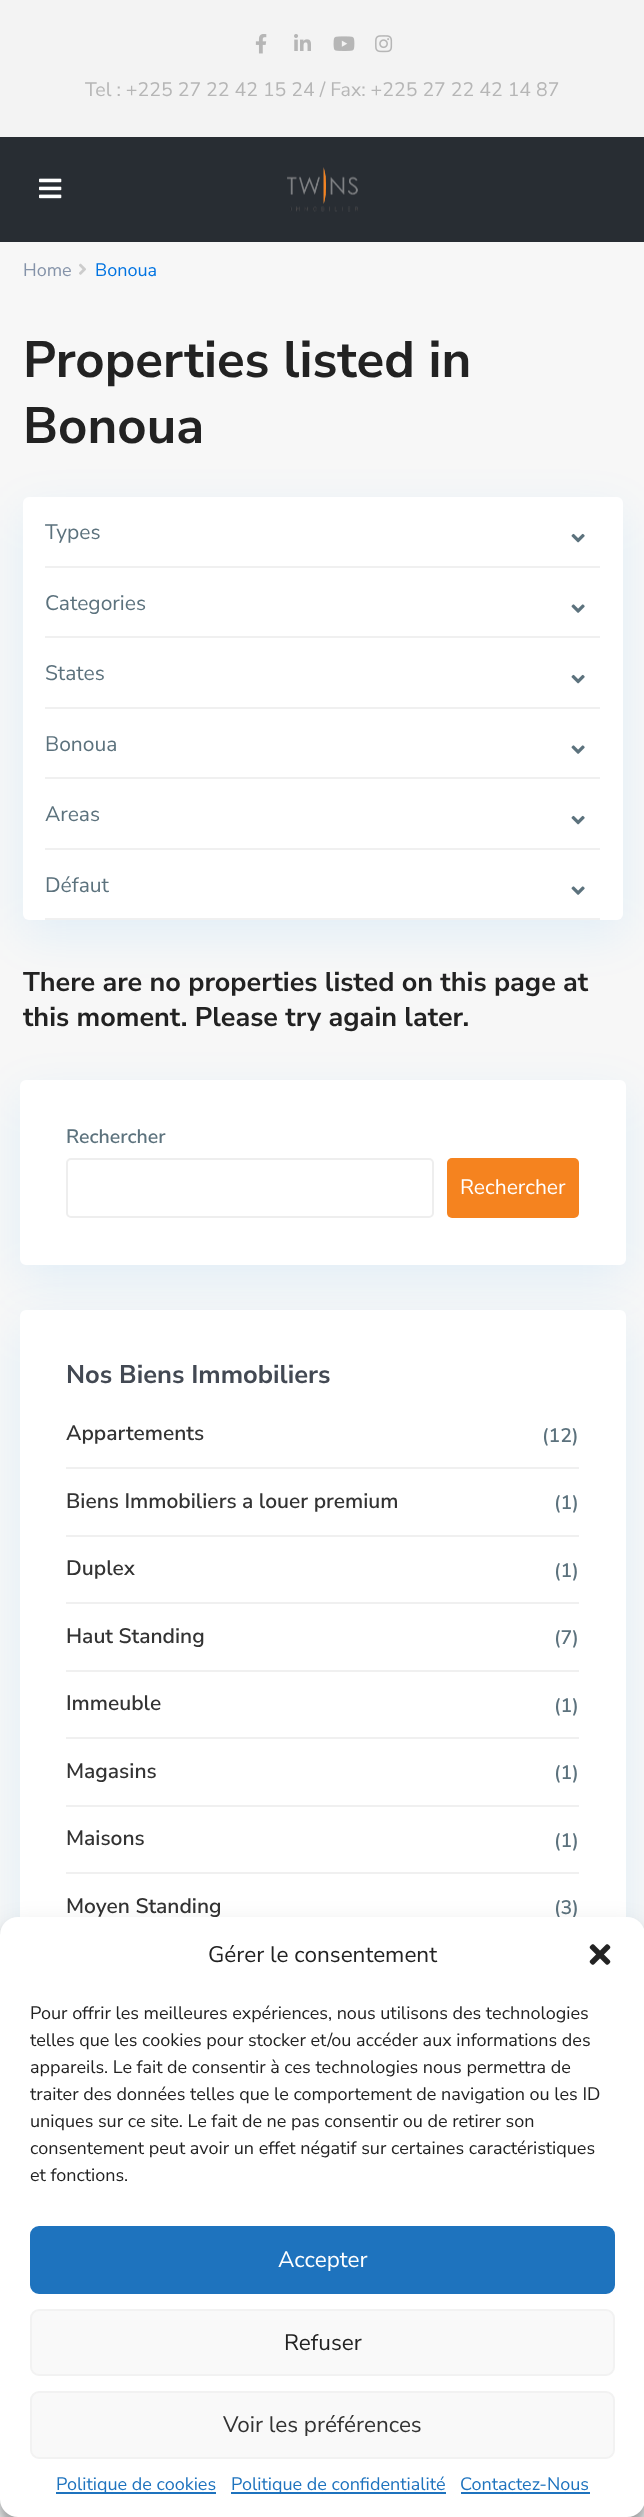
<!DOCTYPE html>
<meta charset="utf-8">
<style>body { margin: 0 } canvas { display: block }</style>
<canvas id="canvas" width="644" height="2517"></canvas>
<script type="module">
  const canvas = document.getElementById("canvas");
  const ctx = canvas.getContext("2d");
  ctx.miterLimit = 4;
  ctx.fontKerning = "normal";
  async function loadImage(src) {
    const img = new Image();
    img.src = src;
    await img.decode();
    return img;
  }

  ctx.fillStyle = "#f7f7f7";
  ctx.fillRect(0, 0, 644, 2517);
  ctx.fillStyle = "#f3f3f3";
  ctx.fillRect(0, 0, 644, 137);
  ctx.drawImage(await loadImage("img1.png"), 255, 34, 12, 20);
  ctx.drawImage(await loadImage("img2.png"), 294, 34, 17, 17);
  ctx.drawImage(await loadImage("img3.png"), 333, 36, 22, 15);
  ctx.drawImage(await loadImage("img4.png"), 375, 35, 18, 18);
  ctx.font = "19.5px Nunito Sans";
  ctx.fillStyle = "#b6b6b6";
  ctx.fillText("Tel : +225 27 22 42 15 24 / Fax: +225 27 22 42 14 87", 85, 96);
  ctx.fillStyle = "#282d33";
  ctx.fillRect(0, 137, 644, 105);
  ctx.drawImage(await loadImage("img5.png"), 39, 178, 23, 21);
  ctx.drawImage(await loadImage("img6.png"), 287, 167, 71, 45);
  ctx.font = "18px Nunito Sans";
  ctx.fillStyle = "#8593a9";
  ctx.fillText("Home", 23, 276);
  ctx.drawImage(await loadImage("img7.png"), 79, 263, 7, 12);
  ctx.fillStyle = "#0073e1";
  ctx.fillText("Bonoua", 95, 276);
  ctx.font = "bold 51px Nunito Sans";
  ctx.fillStyle = "#222222";
  ctx.fillText("Properties listed in", 23, 377);
  ctx.fillText("Bonoua", 23, 443);
  ctx.fillStyle = "rgba(7, 152, 255, 0.09)";
  ctx.filter = "blur(23px)";
  ctx.beginPath();
  ctx.roundRect(23, 512, 600, 423, 6);
  ctx.fill();
  ctx.filter = "none";
  ctx.fillStyle = "#ffffff";
  ctx.beginPath();
  ctx.roundRect(23, 497, 600, 423, 6);
  ctx.fill();
  ctx.fillStyle = "#f0f0f0";
  ctx.fillRect(45, 566, 555, 2);
  ctx.font = "21px Nunito Sans";
  ctx.fillStyle = "#5c727d";
  ctx.fillText("Types", 45, 539);
  ctx.drawImage(await loadImage("img8.png"), 571, 533, 14, 10);
  ctx.fillStyle = "#f0f0f0";
  ctx.fillRect(45, 636, 555, 2);
  ctx.fillStyle = "#5c727d";
  ctx.fillText("Categories", 45, 610);
  ctx.drawImage(await loadImage("img9.png"), 571, 604, 14, 9);
  ctx.fillStyle = "#f0f0f0";
  ctx.fillRect(45, 707, 555, 2);
  ctx.fillStyle = "#5c727d";
  ctx.fillText("States", 45, 680);
  ctx.drawImage(await loadImage("img8.png"), 571, 674, 14, 10);
  ctx.fillStyle = "#f0f0f0";
  ctx.fillRect(45, 777, 555, 2);
  ctx.fillStyle = "#5c727d";
  ctx.fillText("Bonoua", 45, 751);
  ctx.drawImage(await loadImage("img9.png"), 571, 745, 14, 9);
  ctx.fillStyle = "#f0f0f0";
  ctx.fillRect(45, 848, 555, 2);
  ctx.fillStyle = "#5c727d";
  ctx.fillText("Areas", 45, 821);
  ctx.drawImage(await loadImage("img8.png"), 571, 815, 14, 10);
  ctx.fillStyle = "#f0f0f0";
  ctx.fillRect(45, 918, 555, 2);
  ctx.fillStyle = "#5c727d";
  ctx.fillText("Défaut", 45, 892);
  ctx.drawImage(await loadImage("img9.png"), 571, 886, 14, 9);
  ctx.font = "bold 27px Nunito Sans";
  ctx.fillStyle = "#222222";
  ctx.fillText("There are no properties listed on this page at", 23, 991);
  ctx.fillText("this moment. Please try again later.", 23, 1026);
  ctx.fillStyle = "rgba(7, 152, 255, 0.09)";
  ctx.filter = "blur(23px)";
  ctx.beginPath();
  ctx.roundRect(20, 1095, 606, 185, 6);
  ctx.fill();
  ctx.filter = "none";
  ctx.fillStyle = "#ffffff";
  ctx.beginPath();
  ctx.roundRect(21, 1081, 604, 183, 5);
  ctx.fill();
  ctx.strokeStyle = "#ffffff";
  ctx.lineWidth = 2;
  ctx.stroke();
  ctx.font = "600 19.5px Nunito Sans";
  ctx.fillStyle = "#5c727d";
  ctx.fillText("Rechercher", 66, 1143);
  ctx.beginPath();
  ctx.roundRect(67, 1159, 366, 58, 4);
  ctx.strokeStyle = "#eeeeee";
  ctx.stroke();
  ctx.fillStyle = "#f5831f";
  ctx.beginPath();
  ctx.roundRect(447, 1158, 132, 60, 5);
  ctx.fill();
  ctx.font = "21px Nunito Sans";
  ctx.fillStyle = "#ffffff";
  ctx.fillText("Rechercher", 460, 1194);
  ctx.fillStyle = "rgba(7, 152, 255, 0.09)";
  ctx.filter = "blur(23px)";
  ctx.beginPath();
  ctx.roundRect(20, 1325, 606, 829, 6);
  ctx.fill();
  ctx.filter = "none";
  ctx.fillStyle = "#ffffff";
  ctx.beginPath();
  ctx.roundRect(21, 1311, 604, 827, 5);
  ctx.fill();
  ctx.strokeStyle = "#ffffff";
  ctx.stroke();
  ctx.font = "bold 25.5px Nunito Sans";
  ctx.fillStyle = "#434953";
  ctx.fillText("Nos Biens Immobiliers", 66, 1383);
  ctx.fillStyle = "#f0f0f0";
  ctx.fillRect(66, 1467, 513, 2);
  ctx.font = "600 21px Nunito Sans";
  ctx.fillStyle = "#333333";
  ctx.fillText("Appartements", 66, 1440);
  ctx.font = "600 19.5px Nunito Sans";
  ctx.fillStyle = "#5c727d";
  ctx.fillText("(12)", 542, 1442);
  ctx.fillStyle = "#f0f0f0";
  ctx.fillRect(66, 1535, 513, 2);
  ctx.font = "600 21px Nunito Sans";
  ctx.fillStyle = "#333333";
  ctx.fillText("Biens Immobiliers a louer premium", 66, 1508);
  ctx.font = "600 19.5px Nunito Sans";
  ctx.fillStyle = "#5c727d";
  ctx.fillText("(1)", 554, 1509);
  ctx.fillStyle = "#f0f0f0";
  ctx.fillRect(66, 1602, 513, 2);
  ctx.font = "600 21px Nunito Sans";
  ctx.fillStyle = "#333333";
  ctx.fillText("Duplex", 66, 1575);
  ctx.font = "600 19.5px Nunito Sans";
  ctx.fillStyle = "#5c727d";
  ctx.fillText("(1)", 554, 1577);
  ctx.fillStyle = "#f0f0f0";
  ctx.fillRect(66, 1670, 513, 2);
  ctx.font = "600 21px Nunito Sans";
  ctx.fillStyle = "#333333";
  ctx.fillText("Haut Standing", 66, 1643);
  ctx.font = "600 19.5px Nunito Sans";
  ctx.fillStyle = "#5c727d";
  ctx.fillText("(7)", 554, 1644);
  ctx.fillStyle = "#f0f0f0";
  ctx.fillRect(66, 1737, 513, 2);
  ctx.font = "600 21px Nunito Sans";
  ctx.fillStyle = "#333333";
  ctx.fillText("Immeuble", 66, 1710);
  ctx.font = "600 19.5px Nunito Sans";
  ctx.fillStyle = "#5c727d";
  ctx.fillText("(1)", 554, 1712);
  ctx.fillStyle = "#f0f0f0";
  ctx.fillRect(66, 1805, 513, 2);
  ctx.font = "600 21px Nunito Sans";
  ctx.fillStyle = "#333333";
  ctx.fillText("Magasins", 66, 1778);
  ctx.font = "600 19.5px Nunito Sans";
  ctx.fillStyle = "#5c727d";
  ctx.fillText("(1)", 554, 1779);
  ctx.fillStyle = "#f0f0f0";
  ctx.fillRect(66, 1872, 513, 2);
  ctx.font = "600 21px Nunito Sans";
  ctx.fillStyle = "#333333";
  ctx.fillText("Maisons", 66, 1845);
  ctx.font = "600 19.5px Nunito Sans";
  ctx.fillStyle = "#5c727d";
  ctx.fillText("(1)", 554, 1847);
  ctx.font = "600 21px Nunito Sans";
  ctx.fillStyle = "#333333";
  ctx.fillText("Moyen Standing", 66, 1913);
  ctx.font = "600 19.5px Nunito Sans";
  ctx.fillStyle = "#5c727d";
  ctx.fillText("(3)", 554, 1914);
  ctx.fillStyle = "rgba(7, 152, 255, 0.09)";
  ctx.filter = "blur(23px)";
  ctx.beginPath();
  ctx.roundRect(20, 2199, 606, 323, 6);
  ctx.fill();
  ctx.filter = "none";
  ctx.fillStyle = "rgba(0, 0, 0, 0.23)";
  ctx.filter = "blur(4.5px)";
  ctx.beginPath();
  ctx.roundRect(0, 1926, 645, 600, 18);
  ctx.fill();
  ctx.filter = "none";
  ctx.fillStyle = "rgba(0, 0, 0, 0.19)";
  ctx.filter = "blur(15px)";
  ctx.beginPath();
  ctx.roundRect(0, 1932, 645, 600, 18);
  ctx.fill();
  ctx.filter = "none";
  ctx.fillStyle = "#ffffff";
  ctx.beginPath();
  ctx.roundRect(0, 1917, 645, 600, 18);
  ctx.fill();
  ctx.font = "22.5px Nunito Sans";
  ctx.fillStyle = "#222222";
  ctx.fillText("Gérer le consentement", 208, 1962);
  ctx.drawImage(await loadImage("img10.png"), 589, 1944, 22, 21);
  ctx.font = "18px Nunito Sans";
  ctx.fillText("Pour offrir les meilleures expériences, nous utilisons des technologies", 30, 2019);
  ctx.fillText("telles que les cookies pour stocker et/ou accéder aux informations des", 30, 2046);
  ctx.fillText("appareils. Le fait de consentir à ces technologies nous permettra de", 30, 2073);
  ctx.fillText("traiter des données telles que le comportement de navigation ou les ID", 30, 2100);
  ctx.fillText("uniques sur ce site. Le fait de ne pas consentir ou de retirer son", 30, 2127);
  ctx.fillText("consentement peut avoir un effet négatif sur certaines caractéristiques", 30, 2154);
  ctx.fillText("et fonctions.", 30, 2181);
  ctx.fillStyle = "#1e73be";
  ctx.beginPath();
  ctx.roundRect(31, 2227, 583, 66, 8);
  ctx.fill();
  ctx.strokeStyle = "#1e73be";
  ctx.stroke();
  ctx.font = "22.5px Nunito Sans";
  ctx.fillStyle = "#ffffff";
  ctx.fillText("Accepter", 278, 2267);
  ctx.fillStyle = "#f9f9f9";
  ctx.beginPath();
  ctx.roundRect(31, 2310, 583, 65, 8);
  ctx.fill();
  ctx.strokeStyle = "#f2f2f2";
  ctx.stroke();
  ctx.fillStyle = "#222222";
  ctx.fillText("Refuser", 284, 2350);
  ctx.fillStyle = "#f9f9f9";
  ctx.beginPath();
  ctx.roundRect(31, 2392, 583, 66, 8);
  ctx.fill();
  ctx.stroke();
  ctx.fillStyle = "#333333";
  ctx.fillText("Voir les préférences", 223, 2432);
  ctx.fillStyle = "#1e73be";
  ctx.fillRect(56, 2492, 160, 2);
  ctx.font = "18px Nunito Sans";
  ctx.fillText("Politique de cookies", 56, 2490);
  ctx.fillRect(231, 2492, 215, 2);
  ctx.fillText("Politique de confidentialité", 231, 2490);
  ctx.fillText("Contactez-Nous", 460, 2490);
  ctx.fillRect(461, 2492, 129, 2);
</script>
